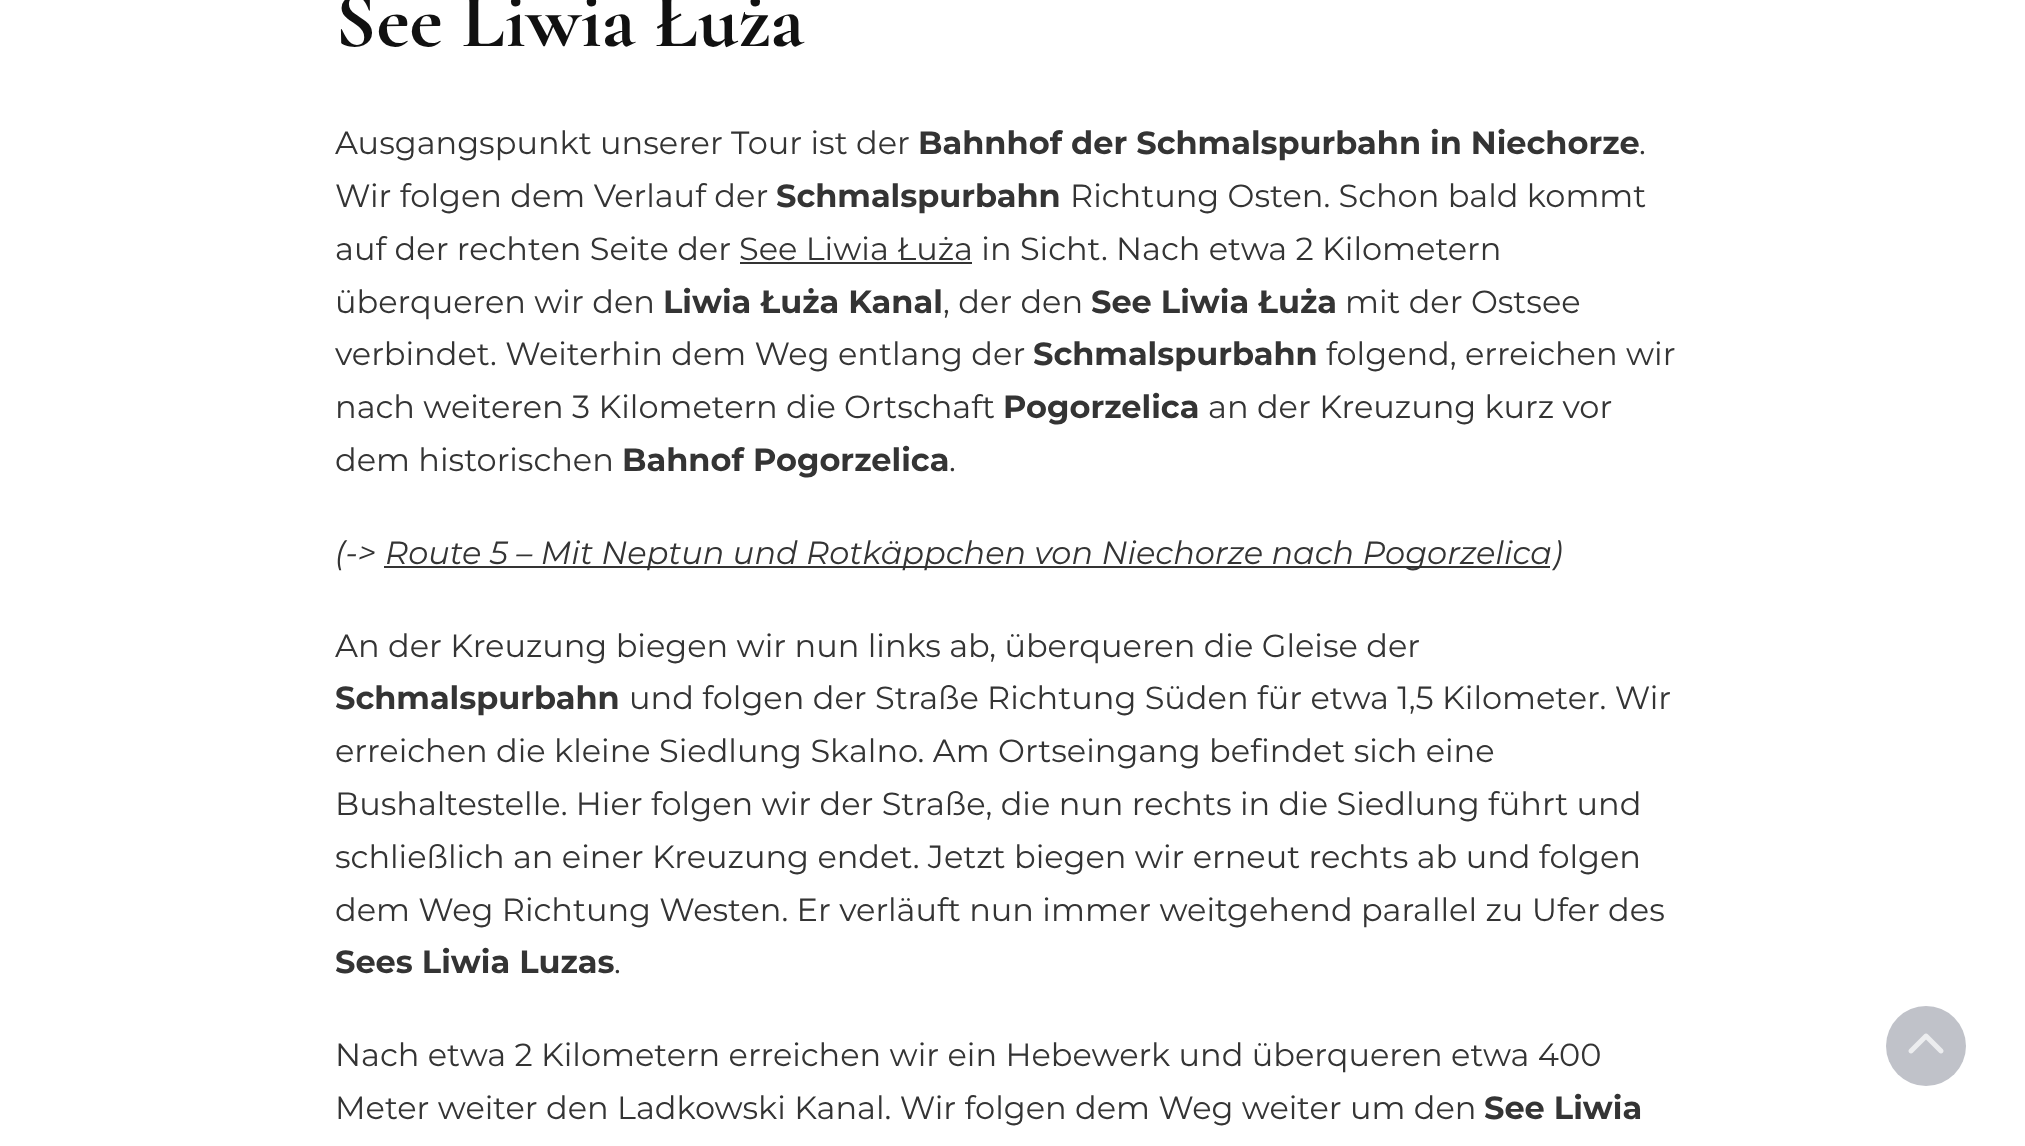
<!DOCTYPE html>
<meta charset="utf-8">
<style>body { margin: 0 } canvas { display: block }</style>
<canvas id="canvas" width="2025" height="1146"></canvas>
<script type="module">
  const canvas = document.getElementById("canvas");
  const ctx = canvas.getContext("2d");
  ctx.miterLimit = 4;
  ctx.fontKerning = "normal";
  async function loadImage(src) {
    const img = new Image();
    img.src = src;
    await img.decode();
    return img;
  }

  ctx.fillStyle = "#ffffff";
  ctx.fillRect(0, 0, 2025, 1146);
  ctx.font = "bold 80px Cormorant Garamond";
  ctx.fillStyle = "#111111";
  ctx.fillText("See Liwia Łuża", 335, 46);
  ctx.font = "32px Montserrat";
  ctx.fillStyle = "#343434";
  ctx.fillText("Ausgangspunkt unserer Tour ist der", 335, 154);
  ctx.font = "bold 32px Montserrat";
  ctx.fillText("Bahnhof der Schmalspurbahn in Niechorze", 918, 154);
  ctx.font = "32px Montserrat";
  ctx.fillText(".", 1639, 154);
  ctx.fillText("Wir folgen dem Verlauf der", 335, 207);
  ctx.font = "bold 32px Montserrat";
  ctx.fillText("Schmalspurbahn", 776, 207);
  ctx.font = "32px Montserrat";
  ctx.fillText("Richtung Osten. Schon bald kommt", 1070, 207);
  ctx.fillText("auf der rechten Seite der", 335, 260);
  ctx.fillText("See Liwia Łuża in Sicht. Nach etwa 2 Kilometern", 739, 260);
  ctx.fillRect(740, 262, 232, 2);
  ctx.fillText("überqueren wir den", 335, 313);
  ctx.font = "bold 32px Montserrat";
  ctx.fillText("Liwia Łuża Kanal", 663, 313);
  ctx.font = "32px Montserrat";
  ctx.fillText(", der den", 943, 313);
  ctx.font = "bold 32px Montserrat";
  ctx.fillText("See Liwia Łuża", 1091, 313);
  ctx.font = "32px Montserrat";
  ctx.fillText("mit der Ostsee", 1345, 313);
  ctx.fillText("verbindet. Weiterhin dem Weg entlang der", 335, 365);
  ctx.font = "bold 32px Montserrat";
  ctx.fillText("Schmalspurbahn", 1033, 365);
  ctx.font = "32px Montserrat";
  ctx.fillText("folgend, erreichen wir", 1326, 365);
  ctx.fillText("nach weiteren 3 Kilometern die Ortschaft", 335, 418);
  ctx.font = "bold 32px Montserrat";
  ctx.fillText("Pogorzelica", 1003, 418);
  ctx.font = "32px Montserrat";
  ctx.fillText("an der Kreuzung kurz vor", 1208, 418);
  ctx.fillText("dem historischen", 335, 471);
  ctx.font = "bold 32px Montserrat";
  ctx.fillText("Bahnof Pogorzelica", 622, 471);
  ctx.font = "32px Montserrat";
  ctx.fillText(".", 949, 471);
  ctx.font = "italic 32px Montserrat";
  ctx.fillText("(->", 335, 564);
  ctx.fillRect(384, 566, 1166, 2);
  ctx.fillText("Route 5 – Mit Neptun und Rotkäppchen von Niechorze nach Pogorzelica)", 385, 564);
  ctx.font = "32px Montserrat";
  ctx.fillText("An der Kreuzung biegen wir nun links ab, überqueren die Gleise der", 335, 657);
  ctx.font = "bold 32px Montserrat";
  ctx.fillText("Schmalspurbahn", 335, 709);
  ctx.font = "32px Montserrat";
  ctx.fillText("und folgen der Straße Richtung Süden für etwa 1,5 Kilometer. Wir", 629, 709);
  ctx.fillText("erreichen die kleine Siedlung Skalno. Am Ortseingang befindet sich eine", 335, 762);
  ctx.fillText("Bushaltestelle. Hier folgen wir der Straße, die nun rechts in die Siedlung führt und", 335, 815);
  ctx.fillText("schließlich an einer Kreuzung endet. Jetzt biegen wir erneut rechts ab und folgen", 335, 868);
  ctx.fillText("dem Weg Richtung Westen. Er verläuft nun immer weitgehend parallel zu Ufer des", 335, 921);
  ctx.font = "bold 32px Montserrat";
  ctx.fillText("Sees Liwia Luzas", 335, 973);
  ctx.font = "32px Montserrat";
  ctx.fillText(".", 614, 973);
  ctx.fillText("Nach etwa 2 Kilometern erreichen wir ein Hebewerk und überqueren etwa 400", 335, 1066);
  ctx.fillText("Meter weiter den Ladkowski Kanal. Wir folgen dem Weg weiter um den", 335, 1119);
  ctx.font = "bold 32px Montserrat";
  ctx.fillText("See Liwia", 1484, 1119);
  ctx.fillStyle = "#c0c2c9";
  ctx.beginPath();
  ctx.arc(1926, 1046, 40, 0, Math.PI * 2);
  ctx.fill();
  ctx.drawImage(await loadImage("img1.png"), 1908, 1033, 36, 21);
</script>
